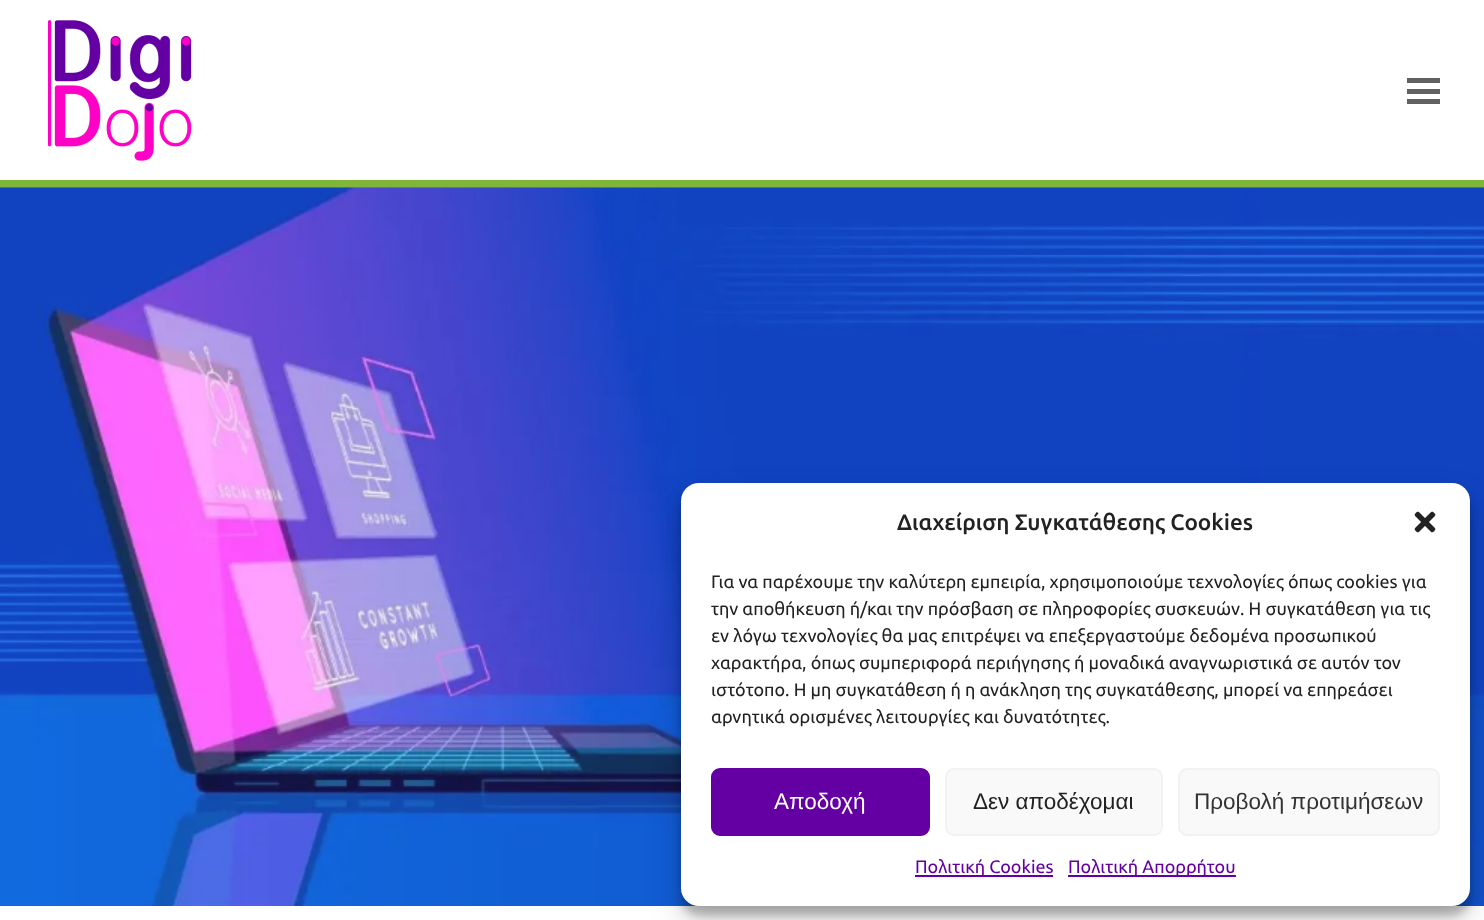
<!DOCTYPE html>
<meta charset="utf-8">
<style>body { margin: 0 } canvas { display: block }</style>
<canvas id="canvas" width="1484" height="920"></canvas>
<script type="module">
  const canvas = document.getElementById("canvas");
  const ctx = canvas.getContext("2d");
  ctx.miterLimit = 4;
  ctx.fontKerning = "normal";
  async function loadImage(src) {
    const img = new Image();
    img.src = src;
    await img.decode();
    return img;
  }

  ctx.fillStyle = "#ffffff";
  ctx.fillRect(0, 0, 1484, 920);
  ctx.drawImage(await loadImage("img1.png"), 48, 20, 144, 141);
  ctx.fillStyle = "#616161";
  ctx.fillRect(1407, 89, 33, 5);
  ctx.fillRect(1407, 78, 33, 5);
  ctx.fillRect(1407, 99, 33, 5);
  ctx.fillStyle = "#7fb63a";
  ctx.fillRect(0, 180, 1484, 8);
  ctx.drawImage(await loadImage("img2.png"), 0, 187, 1484, 719);
  ctx.fillStyle = "rgba(0, 0, 0, 0.23)";
  ctx.filter = "blur(4.5px)";
  ctx.beginPath();
  ctx.roundRect(681, 492, 789, 423, 18);
  ctx.fill();
  ctx.filter = "none";
  ctx.fillStyle = "rgba(0, 0, 0, 0.19)";
  ctx.filter = "blur(15px)";
  ctx.beginPath();
  ctx.roundRect(681, 498, 789, 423, 18);
  ctx.fill();
  ctx.filter = "none";
  ctx.fillStyle = "#ffffff";
  ctx.beginPath();
  ctx.roundRect(681, 483, 789, 423, 18);
  ctx.fill();
  ctx.font = "500 22.5px Ubuntu";
  ctx.fillStyle = "#222222";
  ctx.fillText("Διαχείριση Συγκατάθεσης Cookies", 897, 530);
  ctx.drawImage(await loadImage("img3.png"), 1414, 511, 22, 22);
  ctx.font = "18px Ubuntu";
  ctx.fillText("Για να παρέχουμε την καλύτερη εμπειρία, χρησιμοποιούμε τεχνολογίες όπως cookies για", 711, 588);
  ctx.fillText("την αποθήκευση ή/και την πρόσβαση σε πληροφορίες συσκευών. Η συγκατάθεση για τις", 711, 615);
  ctx.fillText("εν λόγω τεχνολογίες θα μας επιτρέψει να επεξεργαστούμε δεδομένα προσωπικού", 711, 642);
  ctx.fillText("χαρακτήρα, όπως συμπεριφορά περιήγησης ή μοναδικά αναγνωριστικά σε αυτόν τον", 711, 669);
  ctx.fillText("ιστότοπο. Η μη συγκατάθεση ή η ανάκληση της συγκατάθεσης, μπορεί να επηρεάσει", 711, 696);
  ctx.fillText("αρνητικά ορισμένες λειτουργίες και δυνατότητες.", 711, 723);
  ctx.fillStyle = "#6400a3";
  ctx.beginPath();
  ctx.roundRect(712, 769, 217, 66, 8);
  ctx.fill();
  ctx.strokeStyle = "#6400a3";
  ctx.lineWidth = 2;
  ctx.stroke();
  ctx.font = "22.5px Liberation Sans";
  ctx.fillStyle = "#ffffff";
  ctx.fillText("Αποδοχή", 774, 809);
  ctx.fillStyle = "#f9f9f9";
  ctx.beginPath();
  ctx.roundRect(946, 769, 216, 66, 8);
  ctx.fill();
  ctx.strokeStyle = "#f2f2f2";
  ctx.stroke();
  ctx.fillStyle = "#222222";
  ctx.fillText("Δεν αποδέχομαι", 973, 809);
  ctx.fillStyle = "#f9f9f9";
  ctx.beginPath();
  ctx.roundRect(1179, 769, 260, 66, 8);
  ctx.fill();
  ctx.stroke();
  ctx.fillStyle = "#333333";
  ctx.fillText("Προβολή προτιμήσεων", 1194, 809);
  ctx.fillStyle = "#6400a3";
  ctx.fillRect(915, 875, 138, 2);
  ctx.font = "18px Ubuntu";
  ctx.fillText("Πολιτική Cookies", 915, 873);
  ctx.fillRect(1068, 875, 168, 2);
  ctx.fillText("Πολιτική Απορρήτου", 1068, 873);
</script>
